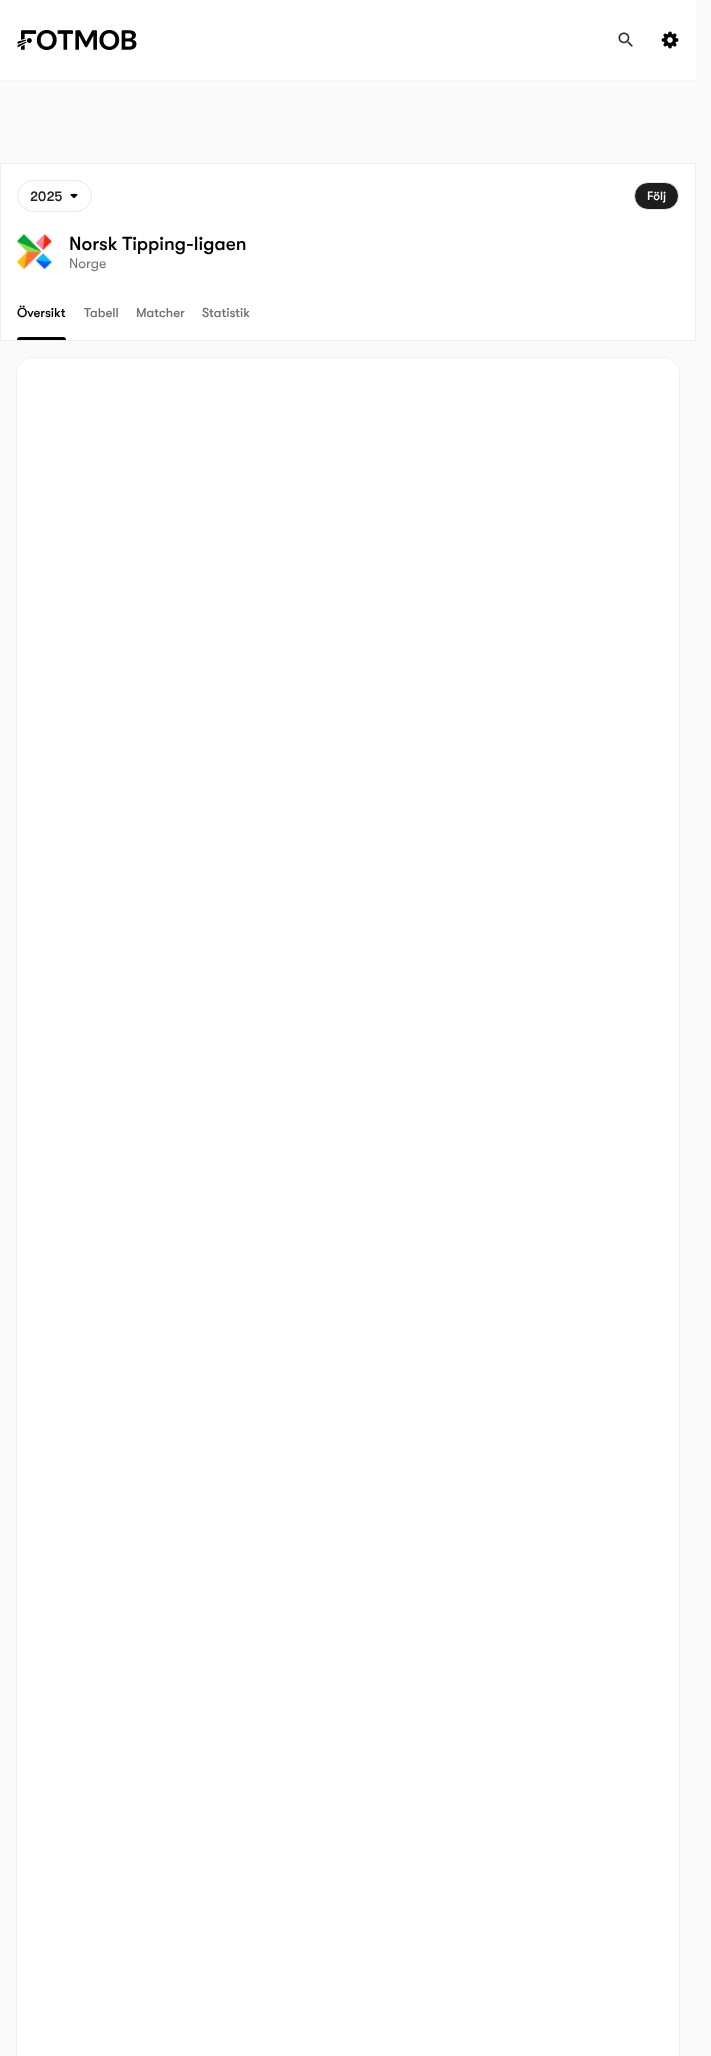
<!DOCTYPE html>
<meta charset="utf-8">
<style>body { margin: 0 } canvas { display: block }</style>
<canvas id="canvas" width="711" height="2056"></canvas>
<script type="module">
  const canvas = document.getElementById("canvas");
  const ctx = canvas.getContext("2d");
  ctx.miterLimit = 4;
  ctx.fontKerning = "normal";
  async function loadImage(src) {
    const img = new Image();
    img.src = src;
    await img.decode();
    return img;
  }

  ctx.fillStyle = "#fafafa";
  ctx.fillRect(0, 0, 711, 2056);
  ctx.fillStyle = "#f5f5f5";
  ctx.fillRect(0, 80, 696, 1);
  ctx.fillStyle = "#ffffff";
  ctx.fillRect(0, 0, 696, 80);
  ctx.drawImage(await loadImage("img1.png"), 17, 30, 120, 20);
  ctx.drawImage(await loadImage("img2.png"), 618, 32, 15, 15);
  ctx.drawImage(await loadImage("img3.png"), 661, 31, 18, 18);
  ctx.beginPath();
  ctx.rect(0.5, 163.5, 695, 177);
  ctx.fill();
  ctx.strokeStyle = "#f0f0f0";
  ctx.stroke();
  ctx.drawImage(await loadImage("img4.png"), 70, 193, 8, 6);
  ctx.beginPath();
  ctx.roundRect(17.5, 180.5, 74, 31, 15.5);
  ctx.strokeStyle = "#e8e8e8";
  ctx.stroke();
  ctx.font = "500 14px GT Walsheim";
  ctx.fillStyle = "#222222";
  ctx.fillText("2025", 30, 201);
  ctx.fillStyle = "#1d1d1d";
  ctx.beginPath();
  ctx.roundRect(634.5, 182.5, 44, 27, 13.5);
  ctx.fill();
  ctx.stroke();
  ctx.font = "500 12px GT Walsheim";
  ctx.fillStyle = "#ffffff";
  ctx.fillText("Följ", 647, 200);
  ctx.drawImage(await loadImage("img5.png"), 17, 234, 35, 35);
  ctx.font = "500 19px GT Walsheim";
  ctx.fillStyle = "#000000";
  ctx.fillText("Norsk Tipping-ligaen", 69, 250);
  ctx.font = "14px GT Walsheim";
  ctx.fillStyle = "#717171";
  ctx.fillText("Norge", 69, 268);
  ctx.font = "500 13px GT Walsheim";
  ctx.fillStyle = "#000000";
  ctx.fillText("Översikt", 17, 317);
  ctx.fillStyle = "#717171";
  ctx.fillText("Tabell", 84, 317);
  ctx.fillText("Matcher", 136, 317);
  ctx.fillText("Statistik", 202, 317);
  ctx.fillStyle = "#000000";
  ctx.beginPath();
  ctx.roundRect(17, 337, 49, 3, [3, 3, 0, 0]);
  ctx.fill();
  ctx.beginPath();
  ctx.roundRect(16.5, 357.5, 663, 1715, 15.5);
  ctx.strokeStyle = "#f0f0f0";
  ctx.stroke();
  ctx.fillStyle = "#ffffff";
  ctx.beginPath();
  ctx.roundRect(17, 358, 662, 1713, 15);
  ctx.fill();
</script>
